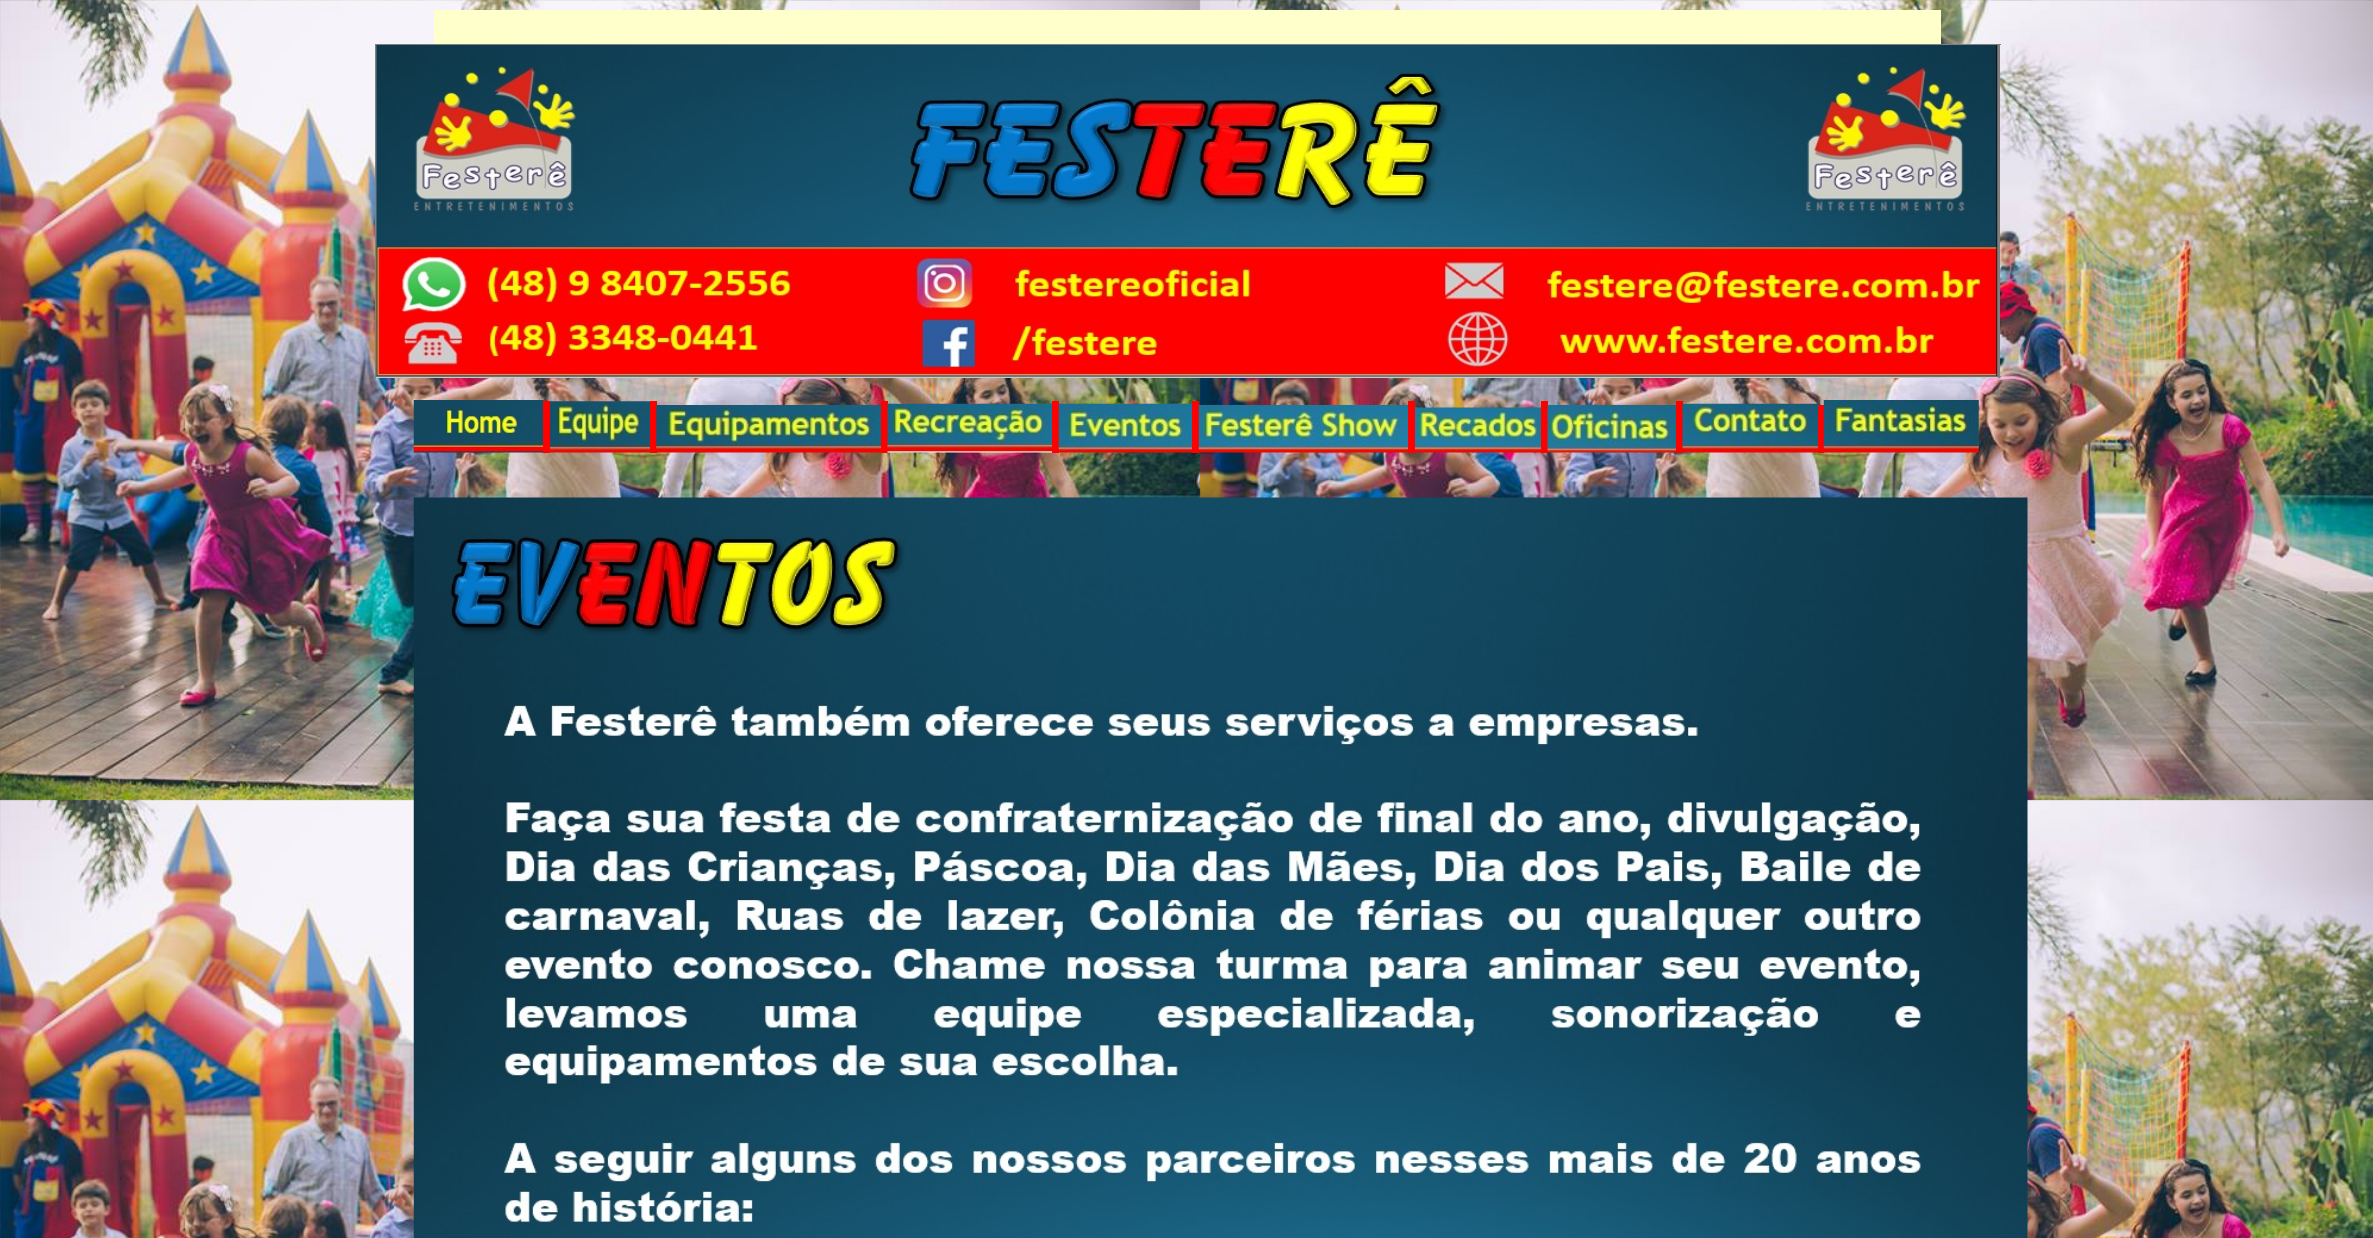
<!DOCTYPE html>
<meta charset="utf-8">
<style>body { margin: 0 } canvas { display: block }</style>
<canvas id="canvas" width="2373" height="1238"></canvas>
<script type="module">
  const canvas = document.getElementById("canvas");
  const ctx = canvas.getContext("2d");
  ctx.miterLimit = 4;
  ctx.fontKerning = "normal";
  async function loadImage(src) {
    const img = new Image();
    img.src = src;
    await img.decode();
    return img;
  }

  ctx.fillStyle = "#ffffff";
  ctx.fillRect(0, 0, 2373, 1238);
  ctx.drawImage(await loadImage("img1.png"), 0, 0, 2373, 1238);
  ctx.fillStyle = "#ffffcc";
  ctx.fillRect(434, 10, 1507, 34);
  ctx.fillStyle = "#cacbd0";
  ctx.fillRect(376, 45, 1622, 333);
  ctx.fillStyle = "#808080";
  ctx.fillRect(375, 44, 1625, 1);
  ctx.fillRect(1999, 44, 1, 334);
  ctx.fillRect(375, 376, 1626, 1);
  ctx.fillRect(375, 44, 1, 334);
  ctx.drawImage(await loadImage("img2.png"), 376, 45, 1622, 332);
  ctx.fillRect(1998, 44, 3, 1);
  ctx.fillRect(1998, 44, 1, 334);
  ctx.drawImage(await loadImage("img3.png"), 413, 400, 131, 53);
  ctx.fillStyle = "#fe0000";
  ctx.fillRect(543, 401, 7, 52);
  ctx.drawImage(await loadImage("img4.png"), 550, 401, 100, 52);
  ctx.fillRect(650, 401, 7, 52);
  ctx.drawImage(await loadImage("img5.png"), 656, 405, 225, 48);
  ctx.fillRect(881, 401, 7, 52);
  ctx.drawImage(await loadImage("img6.png"), 887, 403, 165, 50);
  ctx.fillRect(1052, 401, 7, 52);
  ctx.drawImage(await loadImage("img7.png"), 1058, 403, 134, 50);
  ctx.fillRect(1192, 401, 7, 52);
  ctx.drawImage(await loadImage("img8.png"), 1198, 405, 210, 48);
  ctx.fillRect(1408, 401, 7, 52);
  ctx.drawImage(await loadImage("img9.png"), 1415, 407, 126, 46);
  ctx.fillRect(1541, 401, 7, 52);
  ctx.drawImage(await loadImage("img10.png"), 1547, 405, 129, 48);
  ctx.fillRect(1676, 401, 7, 52);
  ctx.drawImage(await loadImage("img11.png"), 1682, 403, 137, 50);
  ctx.fillRect(1818, 405, 6, 48);
  ctx.drawImage(await loadImage("img12.png"), 1823, 400, 156, 53);
  ctx.drawImage(await loadImage("img13.png"), 413, 497, 1615, 741);
</script>
